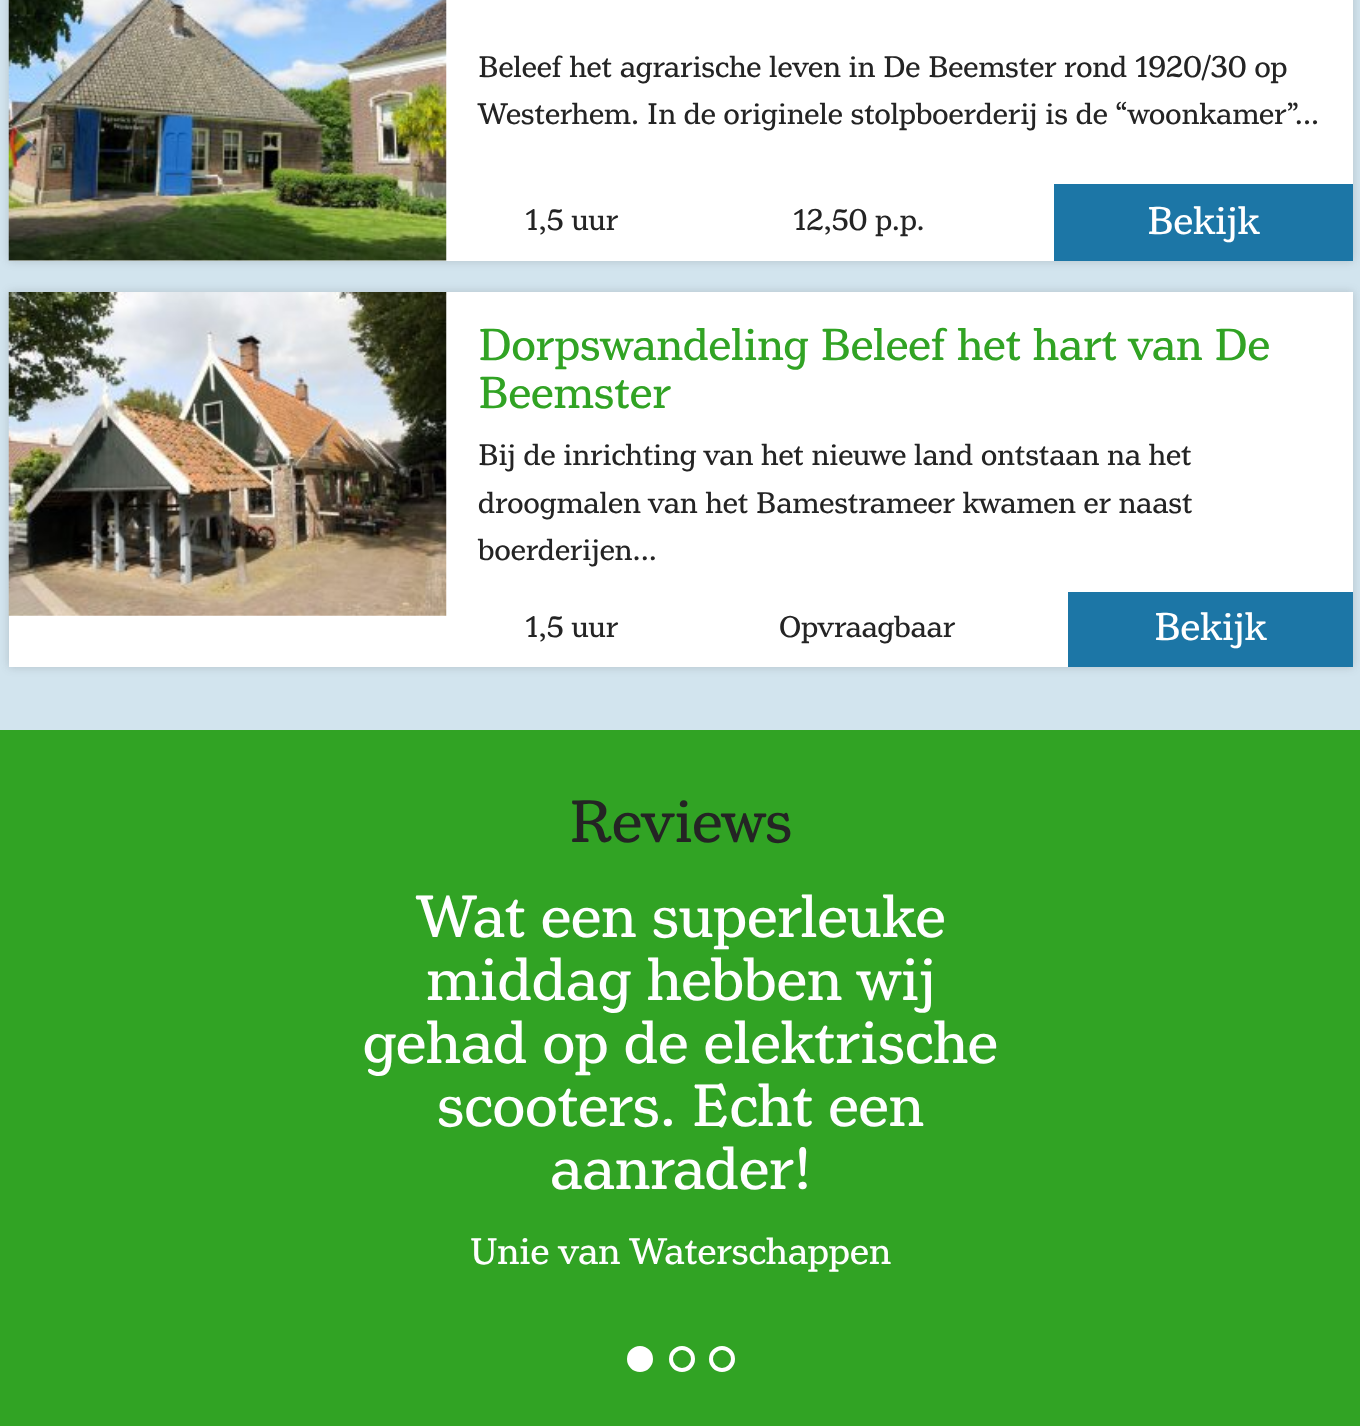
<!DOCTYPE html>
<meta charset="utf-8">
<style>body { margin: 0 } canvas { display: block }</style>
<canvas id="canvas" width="1360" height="1426"></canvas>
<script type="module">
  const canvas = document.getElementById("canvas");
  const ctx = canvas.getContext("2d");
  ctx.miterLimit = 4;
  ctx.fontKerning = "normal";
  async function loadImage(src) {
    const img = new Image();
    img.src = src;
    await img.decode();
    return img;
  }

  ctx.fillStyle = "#d2e4ee";
  ctx.fillRect(0, 0, 1360, 1426);
  ctx.fillStyle = "rgba(51, 51, 51, 0.2)";
  ctx.filter = "blur(5px)";
  ctx.beginPath();
  ctx.rect(9, -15, 1344, 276);
  ctx.fill();
  ctx.filter = "none";
  ctx.fillStyle = "#ffffff";
  ctx.fillRect(9, 0, 1344, 261);
  ctx.drawImage(await loadImage("img1.png"), 8, 0, 439, 261);
  ctx.font = "31.5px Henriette";
  ctx.fillStyle = "#242424";
  ctx.fillText("Beleef het agrarische leven in De Beemster rond 1920/30 op", 478, 77);
  ctx.fillText("Westerhem. In de originele stolpboerderij is de “woonkamer”...", 478, 124);
  ctx.fillText("1,5 uur", 525, 230);
  ctx.fillText("12,50 p.p.", 793, 230);
  ctx.fillStyle = "#1c76a6";
  ctx.fillRect(1054, 184, 299, 77);
  ctx.font = "41px Henriette";
  ctx.fillStyle = "#ffffff";
  ctx.fillText("Bekijk", 1147, 234);
  ctx.fillStyle = "rgba(51, 51, 51, 0.2)";
  ctx.filter = "blur(5px)";
  ctx.beginPath();
  ctx.rect(9, 292, 1344, 375);
  ctx.fill();
  ctx.filter = "none";
  ctx.fillStyle = "#ffffff";
  ctx.fillRect(9, 292, 1344, 375);
  ctx.drawImage(await loadImage("img2.png"), 8, 292, 439, 324);
  ctx.font = "47.25px Henriette";
  ctx.fillStyle = "#31a324";
  ctx.fillText("Dorpswandeling Beleef het hart van De", 478, 360);
  ctx.fillText("Beemster", 478, 408);
  ctx.font = "31.5px Henriette";
  ctx.fillStyle = "#242424";
  ctx.fillText("Bij de inrichting van het nieuwe land ontstaan na het", 478, 465);
  ctx.fillText("droogmalen van het Bamestrameer kwamen er naast", 478, 513);
  ctx.fillText("boerderijen...", 478, 560);
  ctx.fillText("1,5 uur", 525, 637);
  ctx.fillText("Opvraagbaar", 779, 637);
  ctx.fillStyle = "#1c76a6";
  ctx.fillRect(1068, 592, 285, 75);
  ctx.font = "41px Henriette";
  ctx.fillStyle = "#ffffff";
  ctx.fillText("Bekijk", 1154, 640);
  ctx.fillStyle = "#31a324";
  ctx.fillRect(0, 730, 1360, 696);
  ctx.font = "63px Henriette";
  ctx.fillStyle = "#242424";
  ctx.fillText("Reviews", 569, 842);
  ctx.fillStyle = "#ffffff";
  ctx.fillText("Wat een superleuke", 417, 937);
  ctx.fillText("middag hebben wij", 426, 1000);
  ctx.fillText("gehad op de elektrische", 363, 1063);
  ctx.fillText("scooters. Echt een", 437, 1126);
  ctx.fillText("aanrader!", 550, 1189);
  ctx.font = "39.4px Henriette";
  ctx.fillText("Unie van Waterschappen", 470, 1264);
  ctx.beginPath();
  ctx.arc(640, 1359, 11, 0, Math.PI * 2);
  ctx.fill();
  ctx.strokeStyle = "#ffffff";
  ctx.lineWidth = 4;
  ctx.stroke();
  ctx.beginPath();
  ctx.arc(682, 1359, 11, 0, Math.PI * 2);
  ctx.stroke();
  ctx.beginPath();
  ctx.arc(722, 1359, 11, 0, Math.PI * 2);
  ctx.stroke();
</script>
